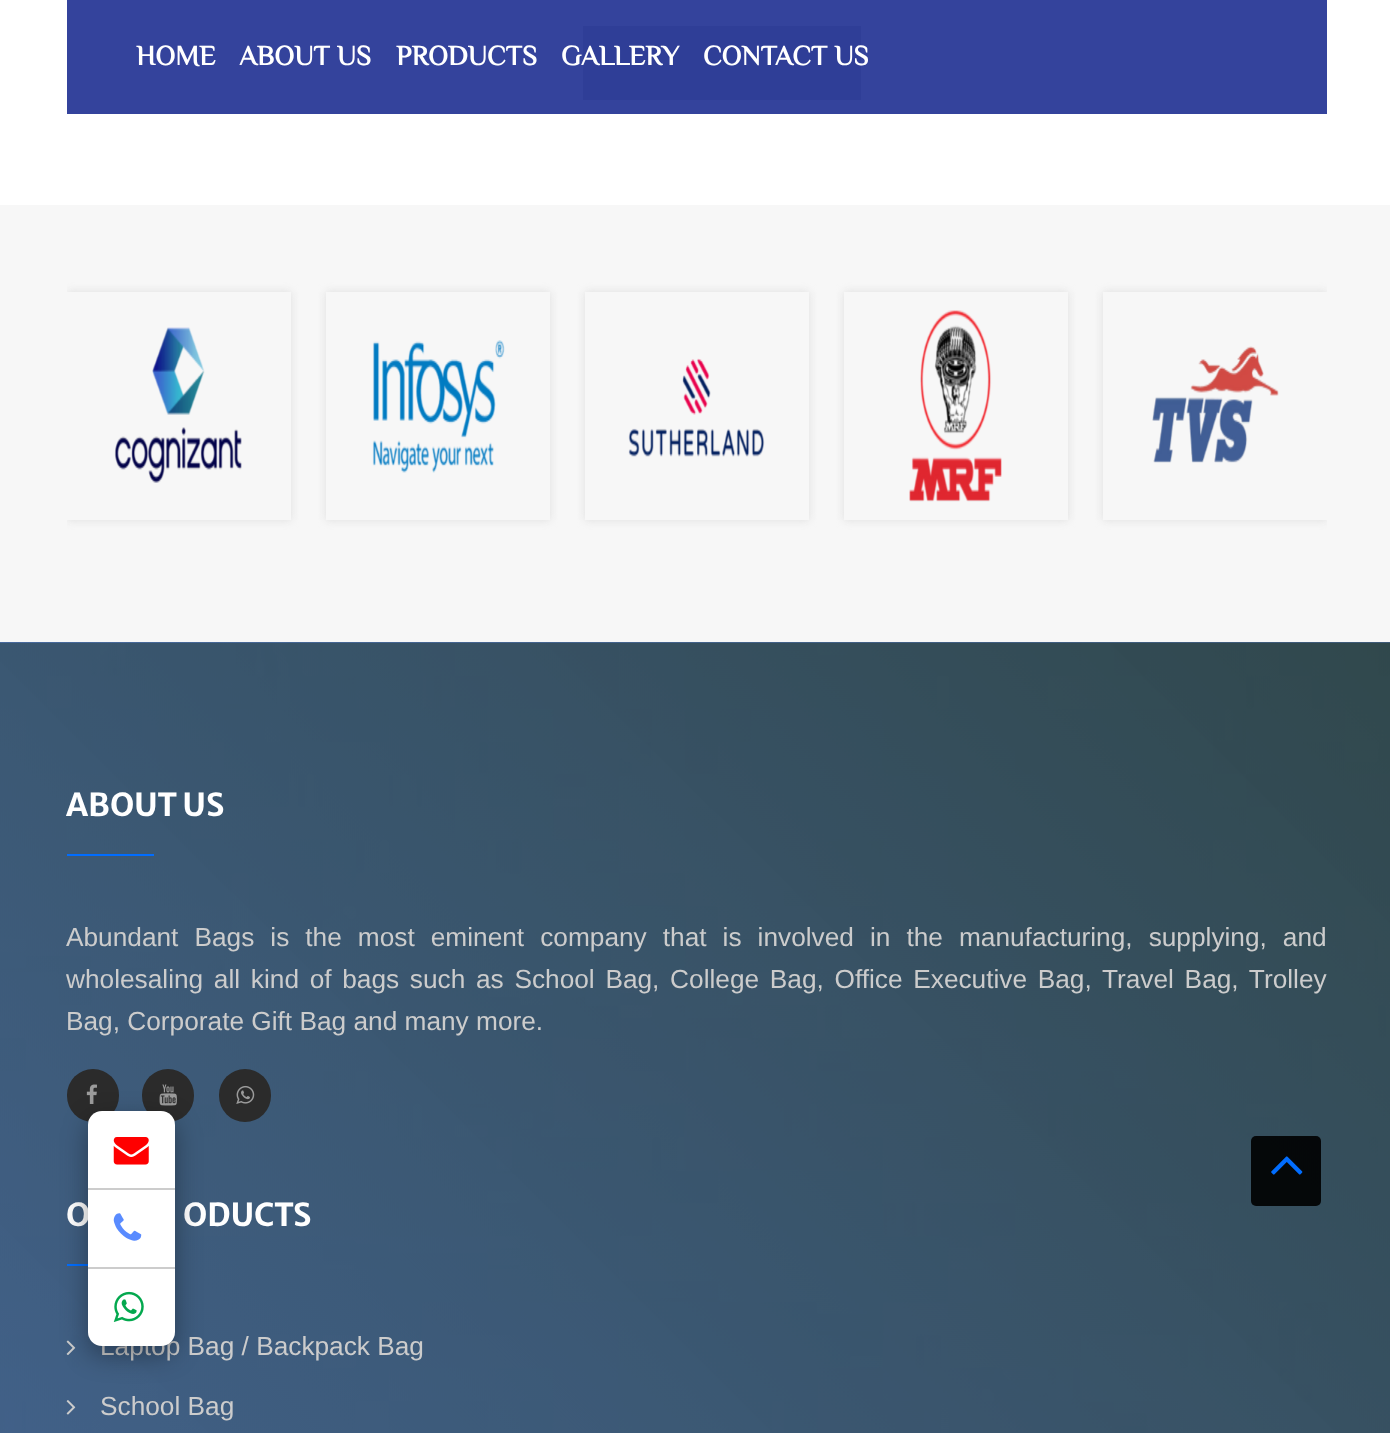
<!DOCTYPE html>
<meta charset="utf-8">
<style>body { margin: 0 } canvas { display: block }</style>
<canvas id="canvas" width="1390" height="1433"></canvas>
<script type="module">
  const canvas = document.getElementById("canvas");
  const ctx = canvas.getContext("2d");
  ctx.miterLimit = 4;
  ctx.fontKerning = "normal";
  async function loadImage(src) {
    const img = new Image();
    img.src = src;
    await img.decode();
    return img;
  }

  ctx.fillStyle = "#ffffff";
  ctx.fillRect(0, 0, 1390, 1433);
  ctx.fillStyle = "#34439c";
  ctx.fillRect(67, 0, 1260, 114);
  ctx.fillStyle = "#2f3e97";
  ctx.fillRect(583, 26, 278, 74);
  ctx.fillStyle = "#f7f7f7";
  ctx.fillRect(0, 205, 1390, 437);
  ctx.save();
  ctx.beginPath();
  ctx.rect(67, 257, 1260, 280);
  ctx.clip();
  ctx.beginPath();
  ctx.moveTo(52, 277);
  ctx.lineTo(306, 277);
  ctx.lineTo(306, 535);
  ctx.lineTo(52, 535);
  ctx.closePath();
  ctx.moveTo(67, 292);
  ctx.lineTo(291, 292);
  ctx.lineTo(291, 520);
  ctx.lineTo(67, 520);
  ctx.closePath();
  ctx.clip("evenodd");
  ctx.fillStyle = "#dddddd";
  ctx.filter = "blur(4.5px)";
  ctx.beginPath();
  ctx.rect(67, 292, 224, 228);
  ctx.fill();
  ctx.filter = "none";
  ctx.restore();
  ctx.drawImage(await loadImage("img1.png"), 114, 327, 128, 156);
  ctx.save();
  ctx.beginPath();
  ctx.moveTo(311, 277);
  ctx.lineTo(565, 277);
  ctx.lineTo(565, 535);
  ctx.lineTo(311, 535);
  ctx.closePath();
  ctx.moveTo(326, 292);
  ctx.lineTo(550, 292);
  ctx.lineTo(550, 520);
  ctx.lineTo(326, 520);
  ctx.closePath();
  ctx.clip("evenodd");
  ctx.fillStyle = "#dddddd";
  ctx.filter = "blur(4.5px)";
  ctx.beginPath();
  ctx.rect(326, 292, 224, 228);
  ctx.fill();
  ctx.filter = "none";
  ctx.restore();
  ctx.drawImage(await loadImage("img2.png"), 372, 340, 133, 133);
  ctx.save();
  ctx.beginPath();
  ctx.moveTo(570, 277);
  ctx.lineTo(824, 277);
  ctx.lineTo(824, 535);
  ctx.lineTo(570, 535);
  ctx.closePath();
  ctx.moveTo(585, 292);
  ctx.lineTo(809, 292);
  ctx.lineTo(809, 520);
  ctx.lineTo(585, 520);
  ctx.closePath();
  ctx.clip("evenodd");
  ctx.fillStyle = "#dddddd";
  ctx.filter = "blur(4.5px)";
  ctx.beginPath();
  ctx.rect(585, 292, 224, 228);
  ctx.fill();
  ctx.filter = "none";
  ctx.restore();
  ctx.drawImage(await loadImage("img3.png"), 628, 358, 137, 99);
  ctx.save();
  ctx.beginPath();
  ctx.moveTo(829, 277);
  ctx.lineTo(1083, 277);
  ctx.lineTo(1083, 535);
  ctx.lineTo(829, 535);
  ctx.closePath();
  ctx.moveTo(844, 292);
  ctx.lineTo(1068, 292);
  ctx.lineTo(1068, 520);
  ctx.lineTo(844, 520);
  ctx.closePath();
  ctx.clip("evenodd");
  ctx.fillStyle = "#dddddd";
  ctx.filter = "blur(4.5px)";
  ctx.beginPath();
  ctx.rect(844, 292, 224, 228);
  ctx.fill();
  ctx.filter = "none";
  ctx.restore();
  ctx.drawImage(await loadImage("img4.png"), 909, 310, 93, 192);
  ctx.save();
  ctx.beginPath();
  ctx.rect(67, 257, 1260, 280);
  ctx.clip();
  ctx.beginPath();
  ctx.moveTo(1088, 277);
  ctx.lineTo(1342, 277);
  ctx.lineTo(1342, 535);
  ctx.lineTo(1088, 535);
  ctx.closePath();
  ctx.moveTo(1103, 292);
  ctx.lineTo(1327, 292);
  ctx.lineTo(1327, 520);
  ctx.lineTo(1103, 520);
  ctx.closePath();
  ctx.clip("evenodd");
  ctx.fillStyle = "#dddddd";
  ctx.filter = "blur(4.5px)";
  ctx.beginPath();
  ctx.rect(1103, 292, 224, 228);
  ctx.fill();
  ctx.filter = "none";
  ctx.restore();
  ctx.drawImage(await loadImage("img5.png"), 1152, 346, 127, 117);
  ctx.font = "bold 28px Philosopher";
  ctx.fillStyle = "#ffffff";
  ctx.fillText("HOME", 136, 65);
  ctx.fillText("ABOUT US", 239, 65);
  ctx.fillText("PRODUCTS", 396, 65);
  ctx.fillText("GALLERY", 561, 65);
  ctx.fillText("CONTACT US", 703, 65);
  ctx.drawImage(await loadImage("img6.png"), 0, 642, 1390, 791);
  ctx.font = "bold 31.5px Merriweather Sans";
  ctx.fillText("ABOUT US", 66, 816);
  ctx.fillStyle = "#016dff";
  ctx.fillRect(67, 854, 87, 2);
  ctx.wordSpacing = "8.75px";
  ctx.font = "26.25px Liberation Sans";
  ctx.fillStyle = "#cccccc";
  ctx.fillText("Abundant Bags is the most eminent company that is involved in the manufacturing, supplying, and", 66, 946);
  ctx.wordSpacing = "3.4px";
  ctx.fillText("wholesaling all kind of bags such as School Bag, College Bag, Office Executive Bag, Travel Bag, Trolley", 66, 988);
  ctx.wordSpacing = "0px";
  ctx.fillText("Bag, Corporate Gift Bag and many more.", 66, 1030);
  ctx.fillStyle = "#2b2b2b";
  ctx.beginPath();
  ctx.roundRect(67, 1069, 52, 53, 26);
  ctx.fill();
  ctx.drawImage(await loadImage("img7.png"), 86, 1084, 11, 20);
  ctx.beginPath();
  ctx.roundRect(142, 1069, 52, 53, 26);
  ctx.fill();
  ctx.drawImage(await loadImage("img8.png"), 159, 1084, 18, 22);
  ctx.beginPath();
  ctx.roundRect(219, 1069, 52, 53, 26);
  ctx.fill();
  ctx.drawImage(await loadImage("img9.png"), 236, 1085, 19, 19);
  ctx.font = "bold 31.5px Merriweather Sans";
  ctx.fillStyle = "#ffffff";
  ctx.fillText("O", 66, 1226);
  ctx.fillText("ODUCTS", 183, 1226);
  ctx.fillStyle = "#016dff";
  ctx.fillRect(67, 1264, 21, 2);
  ctx.drawImage(await loadImage("img10.png"), 66, 1340, 10, 15);
  ctx.font = "26.25px Liberation Sans";
  ctx.fillStyle = "#cccccc";
  ctx.fillText("Laptop Bag / Backpack Bag", 100, 1355);
  ctx.drawImage(await loadImage("img11.png"), 66, 1400, 10, 15);
  ctx.fillText("School Bag", 100, 1415);
  ctx.fillStyle = "rgba(0, 0, 0, 0.9)";
  ctx.beginPath();
  ctx.roundRect(1251, 1136, 70, 70, 5);
  ctx.fill();
  ctx.drawImage(await loadImage("img12.png"), 1271, 1156, 32, 19);
  ctx.fillStyle = "rgba(0, 0, 0, 0.35)";
  ctx.filter = "blur(13px)";
  ctx.beginPath();
  ctx.roundRect(88, 1120, 87, 235, 14);
  ctx.fill();
  ctx.filter = "none";
  ctx.fillStyle = "#ffffff";
  ctx.beginPath();
  ctx.roundRect(88, 1111, 87, 235, 14);
  ctx.fill();
  ctx.fillStyle = "#cccccc";
  ctx.fillRect(88, 1188, 87, 2);
  ctx.drawImage(await loadImage("img13.png"), 113, 1137, 36, 28);
  ctx.fillRect(88, 1267, 87, 2);
  ctx.drawImage(await loadImage("img14.png"), 113, 1213, 29, 28);
  ctx.drawImage(await loadImage("img15.png"), 113, 1291, 31, 31);
</script>
